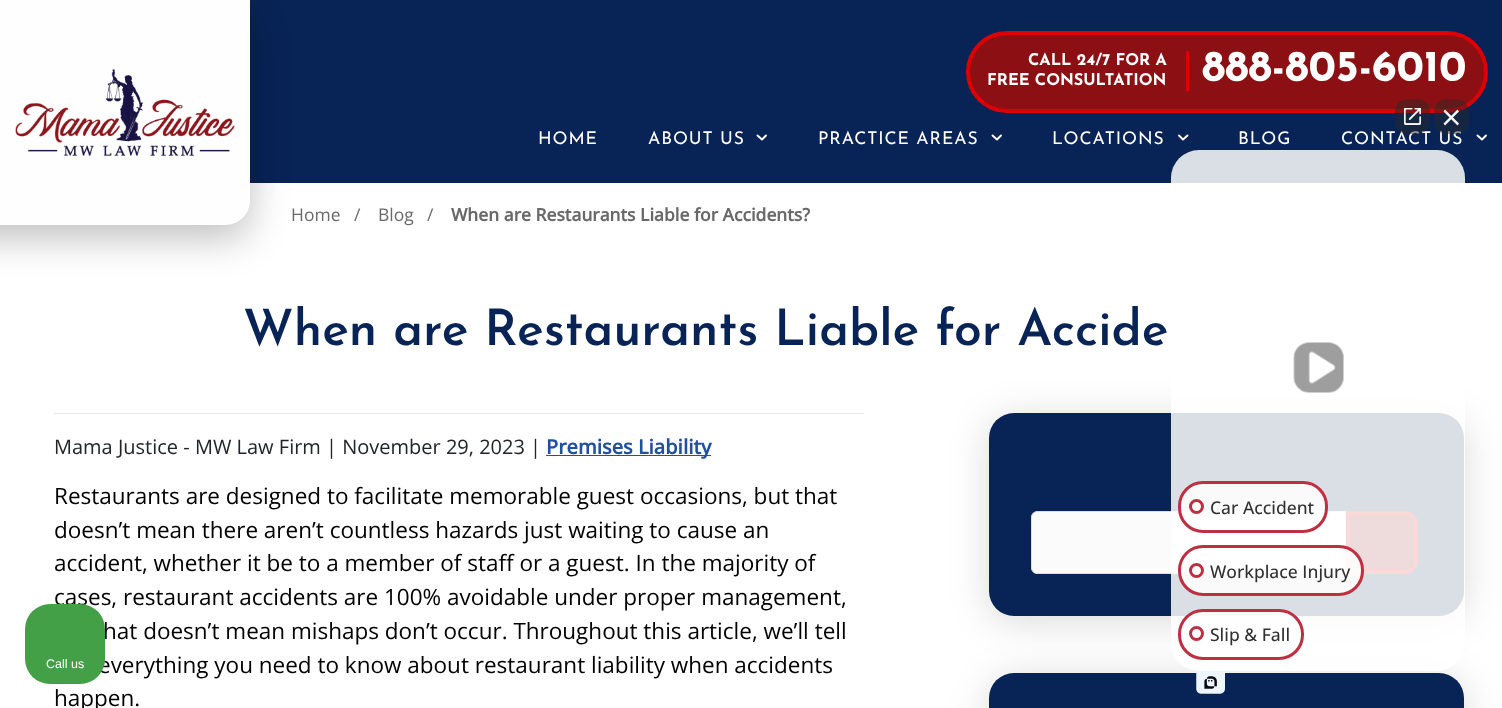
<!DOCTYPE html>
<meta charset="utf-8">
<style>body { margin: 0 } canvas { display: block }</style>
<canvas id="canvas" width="1502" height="708"></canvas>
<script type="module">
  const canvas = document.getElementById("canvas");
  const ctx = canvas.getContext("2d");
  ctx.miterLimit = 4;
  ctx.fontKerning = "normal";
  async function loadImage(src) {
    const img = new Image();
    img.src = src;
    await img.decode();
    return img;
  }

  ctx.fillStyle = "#ffffff";
  ctx.fillRect(0, 0, 1502, 708);
  ctx.fillStyle = "#082355";
  ctx.fillRect(250, 0, 1252, 183);
  ctx.fillStyle = "rgba(0, 0, 0, 0.25)";
  ctx.filter = "blur(19px)";
  ctx.beginPath();
  ctx.roundRect(-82, 13, 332, 225, 25);
  ctx.fill();
  ctx.filter = "none";
  ctx.fillStyle = "#fefefe";
  ctx.beginPath();
  ctx.moveTo(-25, 0);
  ctx.lineTo(250, 0);
  ctx.lineTo(250, 200);
  ctx.bezierCurveTo(250, 214, 239, 225, 225, 225);
  ctx.lineTo(-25, 225);
  ctx.closePath();
  ctx.fill();
  ctx.drawImage(await loadImage("img1.png"), 15, 68, 220, 88);
  ctx.fillStyle = "#8c1013";
  ctx.beginPath();
  ctx.roundRect(968, 33, 518, 78, 39);
  ctx.fill();
  ctx.strokeStyle = "#dc0005";
  ctx.lineWidth = 4;
  ctx.stroke();
  ctx.fillStyle = "#dc0105";
  ctx.fillRect(1186, 51, 3, 40);
  ctx.font = "bold 16.25px Josefin Sans";
  ctx.fillStyle = "#ffffff";
  ctx.fillText("CALL 24/7 FOR A", 1028, 65);
  ctx.fillText("FREE CONSULTATION", 987, 85);
  ctx.font = "bold 43.75px Josefin Sans";
  ctx.fillText("888-805-6010", 1202, 81);
  ctx.letterSpacing = "0.9px";
  ctx.font = "17.5px Josefin Sans";
  ctx.fillText("HOME", 538, 144);
  ctx.fillText("ABOUT US", 648, 144);
  ctx.beginPath();
  ctx.moveTo(757.5, 135.5);
  ctx.lineTo(762, 139.5);
  ctx.lineTo(766, 135.5);
  ctx.strokeStyle = "#ffffff";
  ctx.lineWidth = 1.9;
  ctx.lineCap = "round";
  ctx.lineJoin = "round";
  ctx.stroke();
  ctx.fillText("PRACTICE AREAS", 818, 144);
  ctx.beginPath();
  ctx.moveTo(992.5, 135.5);
  ctx.lineTo(997, 139.5);
  ctx.lineTo(1001, 135.5);
  ctx.stroke();
  ctx.fillText("LOCATIONS", 1052, 144);
  ctx.beginPath();
  ctx.moveTo(1179, 135.5);
  ctx.lineTo(1183, 139.5);
  ctx.lineTo(1187.5, 135.5);
  ctx.stroke();
  ctx.fillText("BLOG", 1238, 144);
  ctx.fillText("CONTACT US", 1341, 144);
  ctx.beginPath();
  ctx.moveTo(1477.5, 135.5);
  ctx.lineTo(1482, 139.5);
  ctx.lineTo(1486, 135.5);
  ctx.stroke();
  ctx.letterSpacing = "0px";
  ctx.font = "17.5px Open Sans";
  ctx.fillStyle = "#696969";
  ctx.fillText("Home", 291, 221);
  ctx.fillText("/", 354, 221);
  ctx.fillText("Blog", 378, 221);
  ctx.fillText("/", 427, 221);
  ctx.font = "bold 17.5px Open Sans";
  ctx.fillText("When are Restaurants Liable for Accidents?", 451, 221);
  ctx.font = "600 50px Josefin Sans";
  ctx.fillStyle = "#082355";
  ctx.fillText("When are Restaurants Liable for Accide", 243, 345);
  ctx.fillStyle = "#e6e6e6";
  ctx.fillRect(54, 413, 810, 1);
  ctx.font = "20px Open Sans";
  ctx.fillStyle = "#212529";
  ctx.fillText("Mama Justice - MW Law Firm | November 29, 2023 |", 54, 454);
  ctx.fillStyle = "#234f9f";
  ctx.fillRect(546, 455, 165, 1);
  ctx.font = "bold 20px Open Sans";
  ctx.fillText("Premises Liability", 546, 454);
  ctx.font = "22.5px Open Sans";
  ctx.fillStyle = "#000000";
  ctx.fillText("Restaurants are designed to facilitate memorable guest occasions, but that", 54, 504);
  ctx.fillText("doesn’t mean there aren’t countless hazards just waiting to cause an", 54, 538);
  ctx.fillText("accident, whether it be to a member of staff or a guest. In the majority of", 54, 571);
  ctx.fillText("cases, restaurant accidents are 100% avoidable under proper management,", 54, 605);
  ctx.fillText("hat doesn’t mean mishaps don’t occur. Throughout this article, we’ll tell", 103, 639);
  ctx.fillText("everything you need to know about restaurant liability when accidents", 98, 673);
  ctx.fillText("happen.", 54, 706);
  ctx.fillStyle = "rgba(0, 0, 0, 0.15)";
  ctx.filter = "blur(19px)";
  ctx.beginPath();
  ctx.roundRect(989, 418, 475, 203, 25);
  ctx.fill();
  ctx.filter = "none";
  ctx.fillStyle = "#082355";
  ctx.beginPath();
  ctx.roundRect(989, 413, 475, 203, 25);
  ctx.fill();
  ctx.fillStyle = "#fbfbfb";
  ctx.beginPath();
  ctx.roundRect(1031.5, 511.5, 314, 62, [5.5, 0, 0, 5.5]);
  ctx.fill();
  ctx.strokeStyle = "#dcdcdc";
  ctx.lineWidth = 1;
  ctx.lineJoin = "miter";
  ctx.stroke();
  ctx.fillStyle = "#8c1013";
  ctx.beginPath();
  ctx.roundRect(1348, 513, 68, 59, [0, 11, 11, 0]);
  ctx.fill();
  ctx.strokeStyle = "#dc0005";
  ctx.lineWidth = 4;
  ctx.stroke();
  ctx.fillStyle = "rgba(0, 0, 0, 0.15)";
  ctx.filter = "blur(19px)";
  ctx.beginPath();
  ctx.roundRect(989, 678, 475, 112, 25);
  ctx.fill();
  ctx.filter = "none";
  ctx.fillStyle = "#082355";
  ctx.beginPath();
  ctx.roundRect(989, 673, 475, 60, 25);
  ctx.fill();
  ctx.fillStyle = "rgba(255, 255, 255, 0.85)";
  ctx.beginPath();
  ctx.roundRect(1171, 150, 294, 521, 28);
  ctx.fill();
  ctx.fillStyle = "rgba(39, 39, 39, 0.45)";
  ctx.beginPath();
  ctx.roundRect(1395, 99, 35, 35, 13);
  ctx.fill();
  ctx.drawImage(await loadImage("img2.png"), 1404, 108, 17, 17);
  ctx.beginPath();
  ctx.roundRect(1434, 99, 35, 35, 13);
  ctx.fill();
  ctx.fillStyle = "#f5f5f5";
  ctx.beginPath();
  ctx.moveTo(1443.5, 111.5);
  ctx.lineTo(1445, 109.5);
  ctx.lineTo(1459, 123.5);
  ctx.lineTo(1457.5, 125.5);
  ctx.closePath();
  ctx.fill();
  ctx.beginPath();
  ctx.moveTo(1457.5, 109.5);
  ctx.lineTo(1459, 111.5);
  ctx.lineTo(1445, 125.5);
  ctx.lineTo(1443.5, 123.5);
  ctx.closePath();
  ctx.fill();
  ctx.drawImage(await loadImage("img3.png"), 1293, 342, 51, 51);
  ctx.fillStyle = "rgba(255, 255, 255, 0.85)";
  ctx.beginPath();
  ctx.roundRect(1179.5, 482.5, 147, 49, 23.5);
  ctx.fill();
  ctx.strokeStyle = "#be3041";
  ctx.lineWidth = 3;
  ctx.stroke();
  ctx.fillStyle = "#ffffff";
  ctx.beginPath();
  ctx.arc(1196.5, 506.5, 6, 0, Math.PI * 2);
  ctx.fill();
  ctx.stroke();
  ctx.font = "500 17.5px Open Sans";
  ctx.fillStyle = "#313131";
  ctx.fillText("Car Accident", 1210, 514);
  ctx.fillStyle = "rgba(255, 255, 255, 0.85)";
  ctx.beginPath();
  ctx.roundRect(1179.5, 546.5, 183, 48, 23.5);
  ctx.fill();
  ctx.stroke();
  ctx.fillStyle = "#ffffff";
  ctx.beginPath();
  ctx.arc(1196.5, 570.5, 6, 0, Math.PI * 2);
  ctx.fill();
  ctx.stroke();
  ctx.fillStyle = "#313131";
  ctx.fillText("Workplace Injury", 1210, 578);
  ctx.fillStyle = "rgba(255, 255, 255, 0.85)";
  ctx.beginPath();
  ctx.roundRect(1179.5, 610.5, 123, 48, 23.5);
  ctx.fill();
  ctx.stroke();
  ctx.beginPath();
  ctx.arc(1196.5, 633.5, 6, 0, Math.PI * 2);
  ctx.stroke();
  ctx.fillStyle = "#313131";
  ctx.fillText("Slip & Fall", 1210, 641);
  ctx.drawImage(await loadImage("img4.png"), 1196, 671, 29, 23);
  ctx.fillStyle = "#43a047";
  ctx.beginPath();
  ctx.roundRect(25, 604, 80, 80, 25);
  ctx.fill();
  ctx.font = "12.5px Liberation Sans";
  ctx.fillStyle = "#ffffff";
  ctx.fillText("Call us", 46, 668);
</script>
